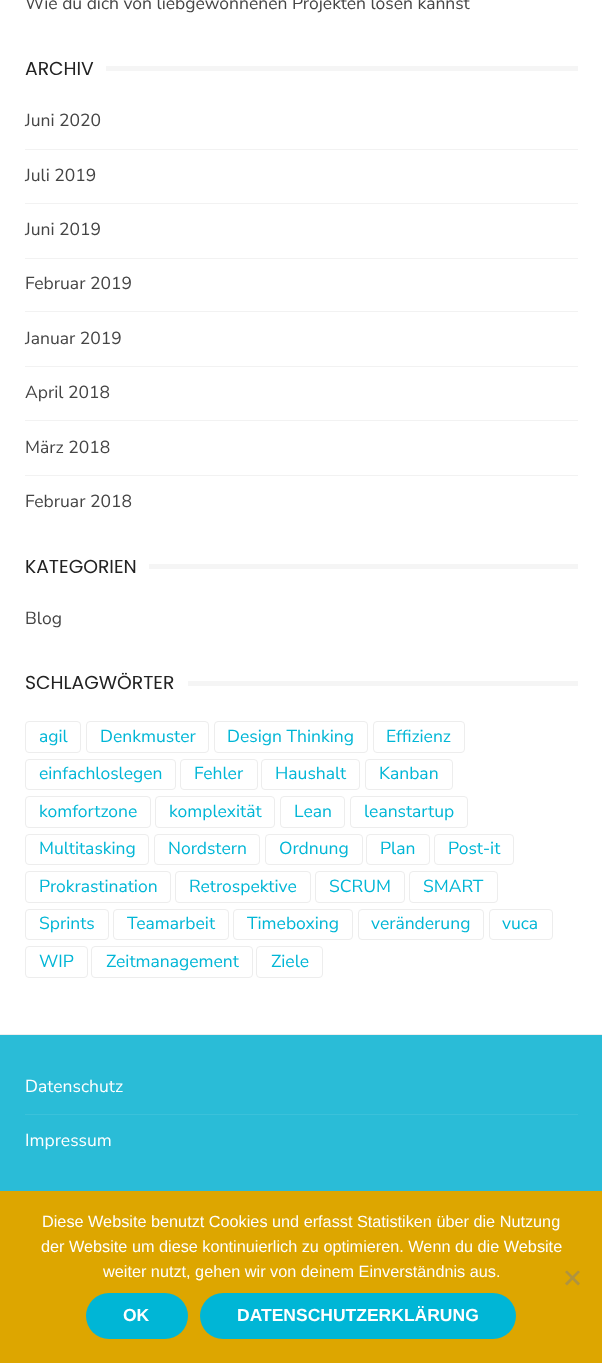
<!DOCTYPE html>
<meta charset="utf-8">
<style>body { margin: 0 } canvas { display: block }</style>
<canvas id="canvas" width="602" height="1363"></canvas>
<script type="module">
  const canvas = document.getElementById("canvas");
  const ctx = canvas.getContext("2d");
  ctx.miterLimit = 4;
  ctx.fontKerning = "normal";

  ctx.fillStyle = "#ffffff";
  ctx.fillRect(0, 0, 602, 1363);
  ctx.font = "17.5px Nunito Sans";
  ctx.fillStyle = "#444444";
  ctx.fillText("Wie du dich von liebgewonnenen Projekten lösen kannst", 25, 9);
  ctx.font = "18.75px Poppins";
  ctx.fillStyle = "#222222";
  ctx.fillText("ARCHIV", 25, 75);
  ctx.fillStyle = "#f5f5f5";
  ctx.fillRect(106, 66, 472, 5);
  ctx.fillStyle = "#f2f2f2";
  ctx.fillRect(25, 149, 553, 1);
  ctx.font = "17.5px Nunito Sans";
  ctx.fillStyle = "#444444";
  ctx.fillText("Juni 2020", 25, 126);
  ctx.fillStyle = "#f2f2f2";
  ctx.fillRect(25, 203, 553, 1);
  ctx.fillStyle = "#444444";
  ctx.fillText("Juli 2019", 25, 181);
  ctx.fillStyle = "#f2f2f2";
  ctx.fillRect(25, 258, 553, 1);
  ctx.fillStyle = "#444444";
  ctx.fillText("Juni 2019", 25, 235);
  ctx.fillStyle = "#f2f2f2";
  ctx.fillRect(25, 311, 553, 1);
  ctx.fillStyle = "#444444";
  ctx.fillText("Februar 2019", 25, 289);
  ctx.fillStyle = "#f2f2f2";
  ctx.fillRect(25, 366, 553, 1);
  ctx.fillStyle = "#444444";
  ctx.fillText("Januar 2019", 25, 344);
  ctx.fillStyle = "#f2f2f2";
  ctx.fillRect(25, 420, 553, 1);
  ctx.fillStyle = "#444444";
  ctx.fillText("April 2018", 25, 398);
  ctx.fillStyle = "#f2f2f2";
  ctx.fillRect(25, 475, 553, 1);
  ctx.fillStyle = "#444444";
  ctx.fillText("März 2018", 25, 453);
  ctx.fillText("Februar 2018", 25, 507);
  ctx.font = "18.75px Poppins";
  ctx.fillStyle = "#222222";
  ctx.fillText("KATEGORIEN", 25, 573);
  ctx.fillStyle = "#f5f5f5";
  ctx.fillRect(149, 564, 429, 5);
  ctx.font = "17.5px Nunito Sans";
  ctx.fillStyle = "#444444";
  ctx.fillText("Blog", 25, 624);
  ctx.font = "18.75px Poppins";
  ctx.fillStyle = "#222222";
  ctx.fillText("SCHLAGWÖRTER", 25, 689);
  ctx.fillStyle = "#f5f5f5";
  ctx.fillRect(188, 681, 390, 5);
  ctx.beginPath();
  ctx.roundRect(25.5, 721.5, 55, 31, 3.5);
  ctx.strokeStyle = "#ededed";
  ctx.stroke();
  ctx.font = "17.5px Nunito Sans";
  ctx.fillStyle = "#00b6d6";
  ctx.fillText("agil", 39, 742);
  ctx.beginPath();
  ctx.roundRect(86.5, 721.5, 122, 31, 3.5);
  ctx.stroke();
  ctx.fillText("Denkmuster", 100, 742);
  ctx.beginPath();
  ctx.roundRect(214.5, 721.5, 153, 31, 3.5);
  ctx.stroke();
  ctx.fillText("Design Thinking", 227, 742);
  ctx.beginPath();
  ctx.roundRect(373.5, 721.5, 91, 31, 3.5);
  ctx.stroke();
  ctx.fillText("Effizienz", 386, 742);
  ctx.beginPath();
  ctx.roundRect(25.5, 759.5, 150, 30, 3.5);
  ctx.stroke();
  ctx.fillText("einfachloslegen", 39, 779);
  ctx.beginPath();
  ctx.roundRect(180.5, 759.5, 77, 30, 3.5);
  ctx.stroke();
  ctx.fillText("Fehler", 194, 779);
  ctx.beginPath();
  ctx.roundRect(261.5, 759.5, 98, 30, 3.5);
  ctx.stroke();
  ctx.fillText("Haushalt", 275, 779);
  ctx.beginPath();
  ctx.roundRect(365.5, 759.5, 87, 30, 3.5);
  ctx.stroke();
  ctx.fillText("Kanban", 379, 779);
  ctx.beginPath();
  ctx.roundRect(25.5, 796.5, 125, 31, 3.5);
  ctx.stroke();
  ctx.fillText("komfortzone", 39, 817);
  ctx.beginPath();
  ctx.roundRect(155.5, 796.5, 119, 31, 3.5);
  ctx.stroke();
  ctx.fillText("komplexität", 169, 817);
  ctx.beginPath();
  ctx.roundRect(280.5, 796.5, 64, 31, 3.5);
  ctx.stroke();
  ctx.fillText("Lean", 294, 817);
  ctx.beginPath();
  ctx.roundRect(350.5, 796.5, 117, 31, 3.5);
  ctx.stroke();
  ctx.fillText("leanstartup", 364, 817);
  ctx.beginPath();
  ctx.roundRect(25.5, 834.5, 123, 30, 3.5);
  ctx.stroke();
  ctx.fillText("Multitasking", 39, 854);
  ctx.beginPath();
  ctx.roundRect(154.5, 834.5, 105, 30, 3.5);
  ctx.stroke();
  ctx.fillText("Nordstern", 168, 854);
  ctx.beginPath();
  ctx.roundRect(265.5, 834.5, 97, 30, 3.5);
  ctx.stroke();
  ctx.fillText("Ordnung", 279, 854);
  ctx.beginPath();
  ctx.roundRect(366.5, 834.5, 63, 30, 3.5);
  ctx.stroke();
  ctx.fillText("Plan", 380, 854);
  ctx.beginPath();
  ctx.roundRect(434.5, 834.5, 79, 30, 3.5);
  ctx.stroke();
  ctx.fillText("Post-it", 448, 854);
  ctx.beginPath();
  ctx.roundRect(25.5, 871.5, 145, 31, 3.5);
  ctx.stroke();
  ctx.fillText("Prokrastination", 39, 892);
  ctx.beginPath();
  ctx.roundRect(175.5, 871.5, 135, 31, 3.5);
  ctx.stroke();
  ctx.fillText("Retrospektive", 189, 892);
  ctx.beginPath();
  ctx.roundRect(315.5, 871.5, 89, 31, 3.5);
  ctx.stroke();
  ctx.fillText("SCRUM", 329, 892);
  ctx.beginPath();
  ctx.roundRect(409.5, 871.5, 88, 31, 3.5);
  ctx.stroke();
  ctx.fillText("SMART", 423, 892);
  ctx.beginPath();
  ctx.roundRect(25.5, 909.5, 83, 30, 3.5);
  ctx.stroke();
  ctx.fillText("Sprints", 39, 929);
  ctx.beginPath();
  ctx.roundRect(113.5, 909.5, 115, 30, 3.5);
  ctx.stroke();
  ctx.fillText("Teamarbeit", 127, 929);
  ctx.beginPath();
  ctx.roundRect(233.5, 909.5, 119, 30, 3.5);
  ctx.stroke();
  ctx.fillText("Timeboxing", 247, 929);
  ctx.beginPath();
  ctx.roundRect(358.5, 909.5, 125, 30, 3.5);
  ctx.stroke();
  ctx.fillText("veränderung", 371, 929);
  ctx.beginPath();
  ctx.roundRect(489.5, 909.5, 63, 30, 3.5);
  ctx.stroke();
  ctx.fillText("vuca", 502, 929);
  ctx.beginPath();
  ctx.roundRect(25.5, 946.5, 62, 31, 3.5);
  ctx.stroke();
  ctx.fillText("WIP", 39, 967);
  ctx.beginPath();
  ctx.roundRect(91.5, 946.5, 161, 31, 3.5);
  ctx.stroke();
  ctx.fillText("Zeitmanagement", 106, 967);
  ctx.beginPath();
  ctx.roundRect(256.5, 946.5, 66, 31, 3.5);
  ctx.stroke();
  ctx.fillText("Ziele", 271, 967);
  ctx.fillStyle = "#eeeeee";
  ctx.fillRect(0, 1034, 602, 1);
  ctx.fillStyle = "#2abcd7";
  ctx.fillRect(0, 1035, 602, 156);
  ctx.fillStyle = "#3bc1da";
  ctx.fillRect(25, 1114, 553, 1);
  ctx.fillStyle = "#ffffff";
  ctx.fillText("Datenschutz", 25, 1092);
  ctx.fillText("Impressum", 25, 1146);
  ctx.fillStyle = "#dda600";
  ctx.fillRect(0, 1191, 602, 172);
  ctx.font = "16.25px Liberation Sans";
  ctx.fillStyle = "#ffffff";
  ctx.fillText("Diese Website benutzt Cookies und erfasst Statistiken über die Nutzung", 42, 1227);
  ctx.fillText("der Website um diese kontinuierlich zu optimieren. Wenn du die Website", 41, 1252);
  ctx.fillText("weiter nutzt, gehen wir von deinem Einverständnis aus.", 103, 1277);
  ctx.fillStyle = "#af9340";
  ctx.beginPath();
  ctx.moveTo(578, 1270.5);
  ctx.lineTo(580, 1272);
  ctx.lineTo(567, 1285.5);
  ctx.lineTo(565, 1283.5);
  ctx.closePath();
  ctx.fill();
  ctx.beginPath();
  ctx.moveTo(565, 1272);
  ctx.lineTo(567, 1270.5);
  ctx.lineTo(580, 1283.5);
  ctx.lineTo(578, 1285.5);
  ctx.closePath();
  ctx.fill();
  ctx.fillStyle = "#00b6d6";
  ctx.beginPath();
  ctx.roundRect(86, 1293, 102, 46, 23);
  ctx.fill();
  ctx.font = "bold 17.5px Liberation Sans";
  ctx.fillStyle = "#ffffff";
  ctx.fillText("OK", 123, 1321);
  ctx.fillStyle = "#00b6d6";
  ctx.beginPath();
  ctx.roundRect(200, 1293, 316, 46, 23);
  ctx.fill();
  ctx.fillStyle = "#ffffff";
  ctx.fillText("DATENSCHUTZERKLÄRUNG", 237, 1321);
</script>
